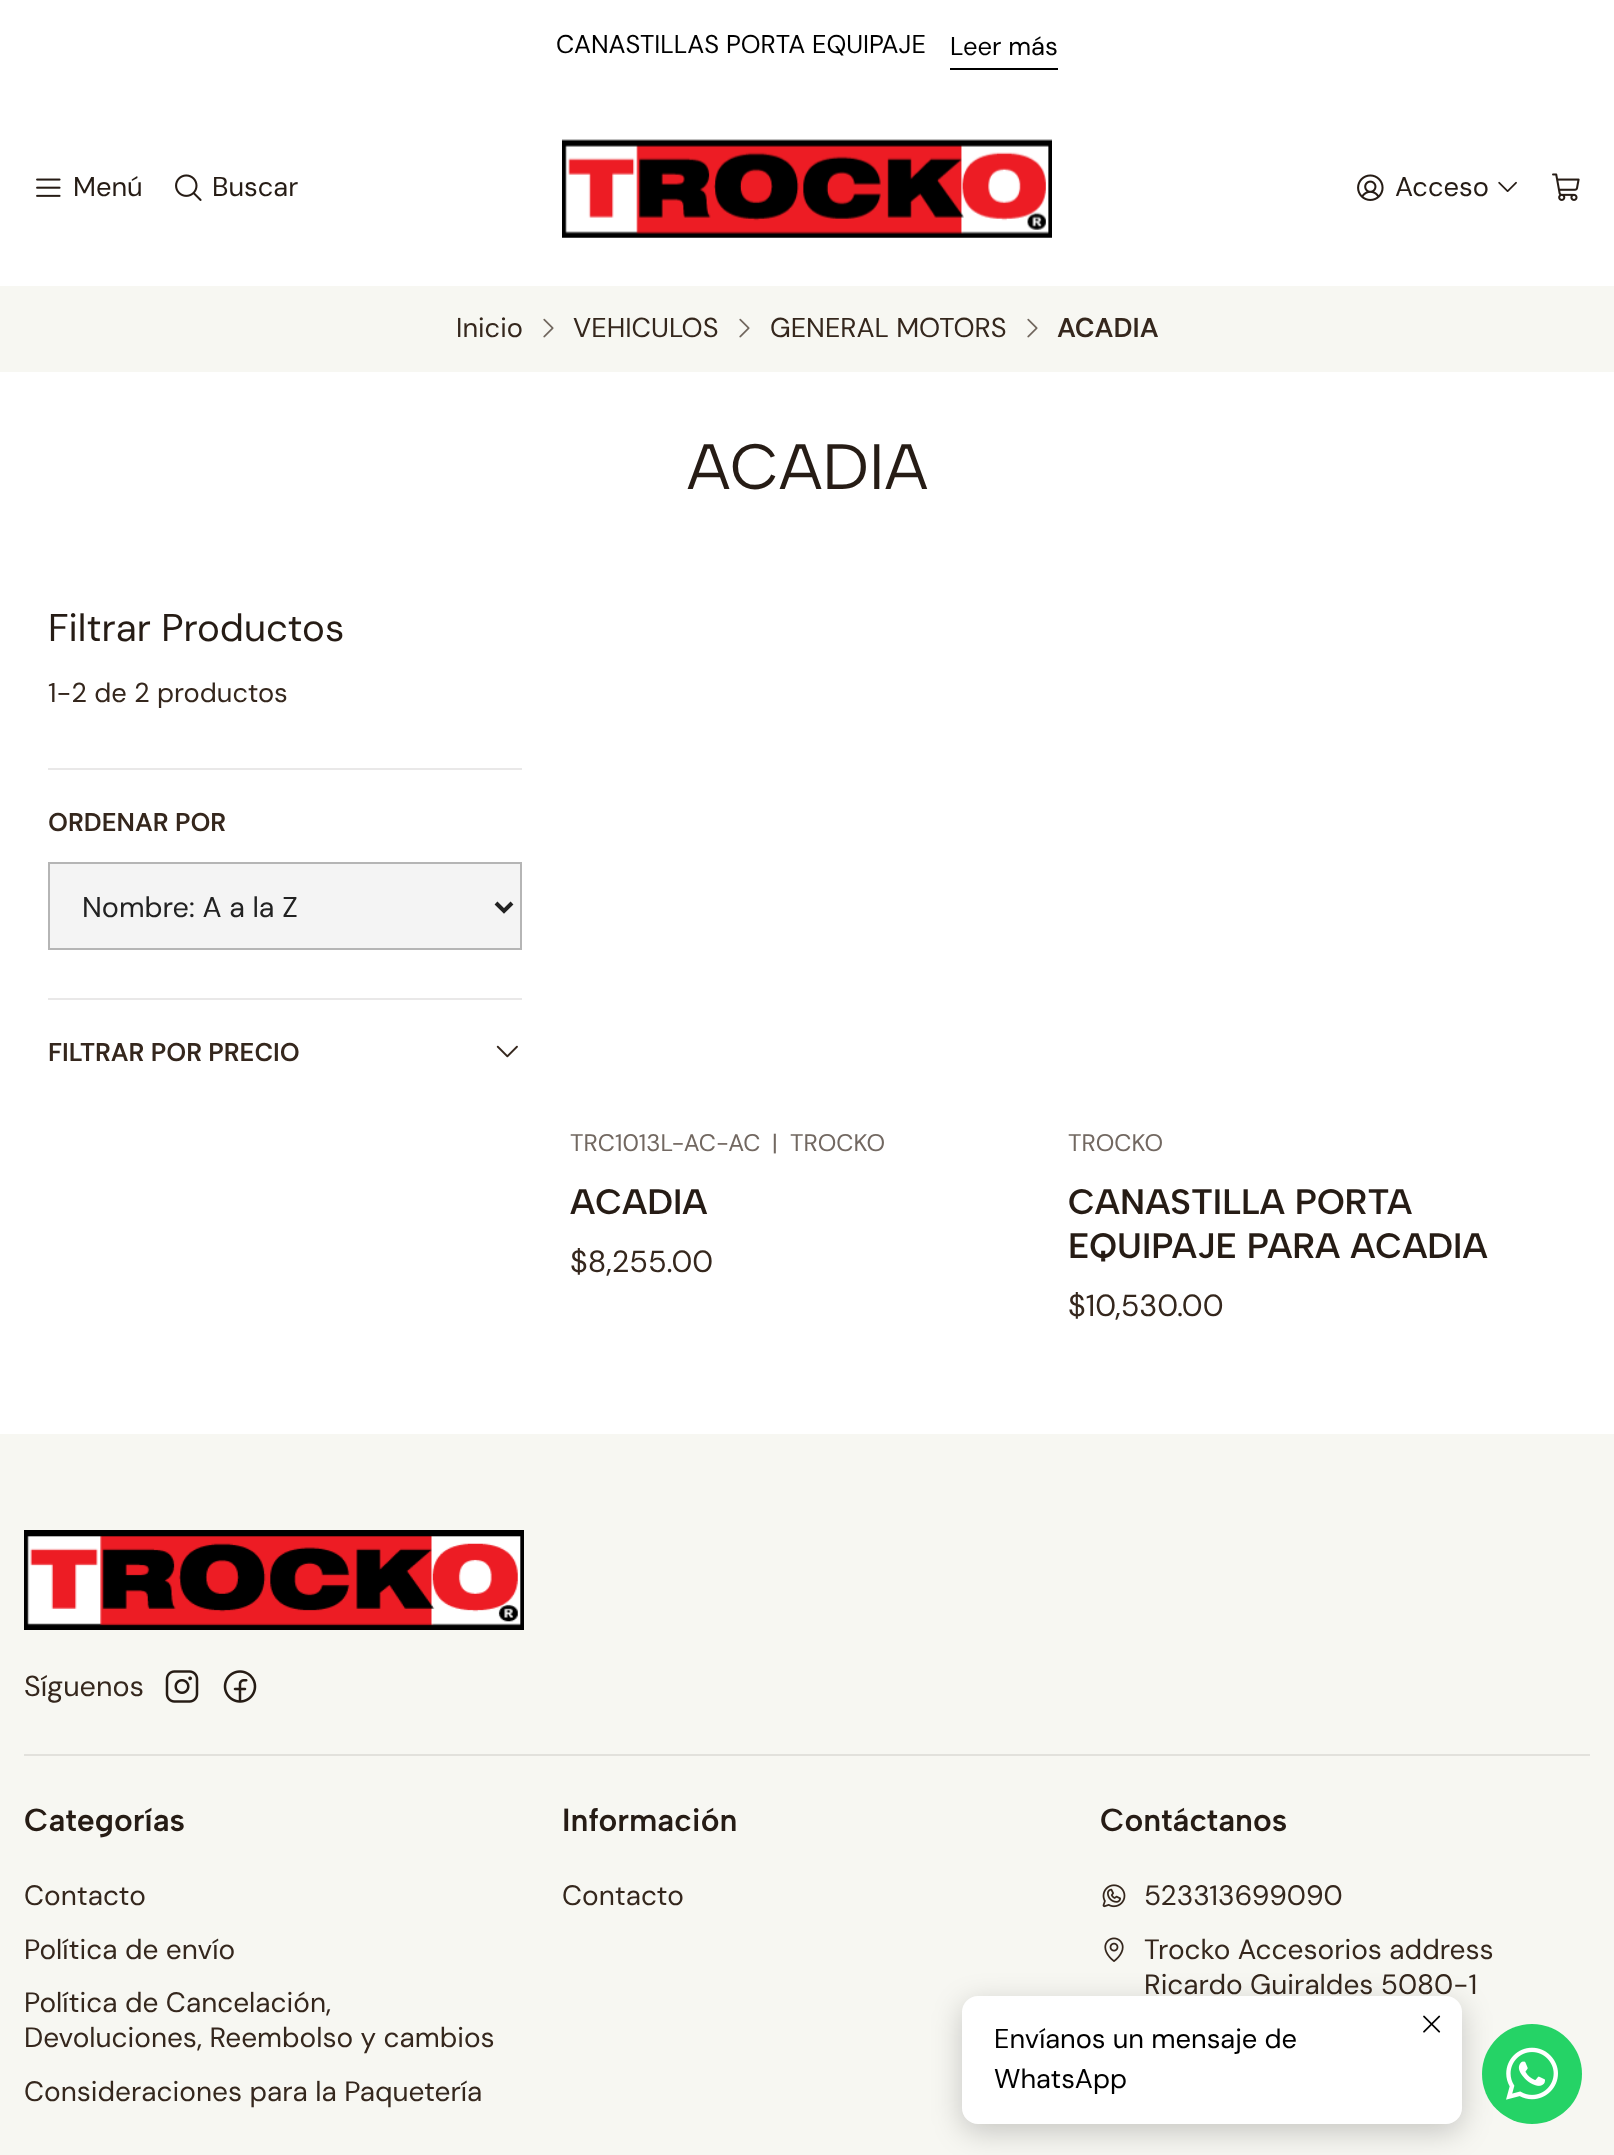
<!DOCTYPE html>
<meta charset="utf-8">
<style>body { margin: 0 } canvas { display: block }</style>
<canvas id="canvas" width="1614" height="2155"></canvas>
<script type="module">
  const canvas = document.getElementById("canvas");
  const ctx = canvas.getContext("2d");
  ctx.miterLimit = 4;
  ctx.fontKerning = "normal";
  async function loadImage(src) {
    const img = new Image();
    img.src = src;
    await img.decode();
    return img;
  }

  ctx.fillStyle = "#ffffff";
  ctx.fillRect(0, 0, 1614, 2155);
  ctx.font = "25.6px DM Sans";
  ctx.fillStyle = "#000000";
  ctx.fillText("CANASTILLAS PORTA EQUIPAJE", 556, 53);
  ctx.fillRect(950, 68, 108, 2);
  ctx.fillText("Leer más", 950, 55);
  ctx.drawImage(await loadImage("img1.png"), 36, 178, 25, 19);
  ctx.font = "27.25px DM Sans";
  ctx.fillStyle = "#261c15";
  ctx.fillText("Menú", 73, 196);
  ctx.drawImage(await loadImage("img2.png"), 175, 174, 27, 27);
  ctx.fillText("Buscar", 212, 196);
  ctx.drawImage(await loadImage("img3.png"), 562, 139, 490, 99);
  ctx.drawImage(await loadImage("img4.png"), 1357, 174, 27, 27);
  ctx.fillText("Acceso", 1395, 196);
  ctx.drawImage(await loadImage("img5.png"), 1498, 181, 19, 11);
  ctx.drawImage(await loadImage("img6.png"), 1552, 173, 28, 28);
  ctx.fillStyle = "#f7f7f2";
  ctx.fillRect(0, 286, 1614, 86);
  ctx.fillStyle = "#35271d";
  ctx.fillText("Inicio", 456, 337);
  ctx.drawImage(await loadImage("img7.png"), 543, 318, 11, 20);
  ctx.fillText("VEHICULOS", 573, 337);
  ctx.drawImage(await loadImage("img7.png"), 739, 318, 11, 20);
  ctx.fillText("GENERAL MOTORS", 770, 337);
  ctx.drawImage(await loadImage("img7.png"), 1027, 318, 11, 20);
  ctx.font = "600 27.25px DM Sans";
  ctx.fillText("ACADIA", 1057, 337);
  ctx.font = "64px Albert Sans";
  ctx.fillStyle = "#261c15";
  ctx.fillText("ACADIA", 687, 489);
  ctx.font = "38.5px DM Sans";
  ctx.fillText("Filtrar Productos", 48, 641);
  ctx.font = "27.25px DM Sans";
  ctx.fillStyle = "#35271d";
  ctx.fillText("1-2 de 2 productos", 48, 702);
  ctx.fillStyle = "#e9e8e8";
  ctx.fillRect(48, 768, 474, 2);
  ctx.font = "600 25.6px DM Sans";
  ctx.fillStyle = "#35271d";
  ctx.fillText("ORDENAR POR", 48, 831);
  ctx.fillStyle = "#f4f4f4";
  ctx.beginPath();
  ctx.rect(49, 863, 472, 86);
  ctx.fill();
  ctx.strokeStyle = "#b5b5b5";
  ctx.lineWidth = 2;
  ctx.stroke();
  ctx.beginPath();
  ctx.moveTo(496, 903);
  ctx.lineTo(504, 911);
  ctx.lineTo(512, 903);
  ctx.strokeStyle = "#222222";
  ctx.lineWidth = 4;
  ctx.stroke();
  ctx.font = "28.75px DM Sans";
  ctx.fillStyle = "#222222";
  ctx.fillText("Nombre: A a la Z", 82, 917);
  ctx.fillStyle = "#e9e8e8";
  ctx.fillRect(48, 998, 474, 2);
  ctx.font = "600 25.6px DM Sans";
  ctx.fillStyle = "#35271d";
  ctx.fillText("FILTRAR POR PRECIO", 48, 1061);
  ctx.drawImage(await loadImage("img8.png"), 496, 1045, 22, 13);
  ctx.font = "24px DM Sans";
  ctx.fillStyle = "#726861";
  ctx.fillText("TRC1013L-AC-AC", 570, 1151);
  ctx.fillText("|", 772, 1151);
  ctx.fillText("TROCKO", 790, 1151);
  ctx.font = "600 35.25px Albert Sans";
  ctx.fillStyle = "#261c15";
  ctx.fillText("ACADIA", 570, 1214);
  ctx.font = "30.5px DM Sans";
  ctx.fillStyle = "#35271d";
  ctx.fillText("$8,255.00", 570, 1272);
  ctx.font = "24px DM Sans";
  ctx.fillStyle = "#726861";
  ctx.fillText("TROCKO", 1068, 1151);
  ctx.font = "600 35.25px Albert Sans";
  ctx.fillStyle = "#261c15";
  ctx.fillText("CANASTILLA PORTA", 1068, 1214);
  ctx.fillText("EQUIPAJE PARA ACADIA", 1068, 1258);
  ctx.font = "30.5px DM Sans";
  ctx.fillStyle = "#35271d";
  ctx.fillText("$10,530.00", 1068, 1316);
  ctx.fillStyle = "#f7f7f2";
  ctx.fillRect(0, 1434, 1614, 721);
  ctx.drawImage(await loadImage("img9.png"), 24, 1530, 500, 100);
  ctx.font = "28.75px DM Sans";
  ctx.fillStyle = "#35271d";
  ctx.fillText("Síguenos", 24, 1696);
  ctx.drawImage(await loadImage("img10.png"), 165, 1670, 34, 33);
  ctx.drawImage(await loadImage("img11.png"), 223, 1670, 34, 33);
  ctx.fillStyle = "#e2e1dc";
  ctx.fillRect(24, 1754, 1566, 2);
  ctx.font = "600 32px Albert Sans";
  ctx.fillStyle = "#261c15";
  ctx.fillText("Categorías", 24, 1831);
  ctx.font = "28px DM Sans";
  ctx.fillStyle = "#35271d";
  ctx.fillText("Contacto", 24, 1905);
  ctx.fillText("Política de envío", 24, 1959);
  ctx.fillText("Política de Cancelación,", 24, 2012);
  ctx.fillText("Devoluciones, Reembolso y cambios", 24, 2047);
  ctx.fillText("Consideraciones para la Paquetería", 24, 2101);
  ctx.font = "600 32px Albert Sans";
  ctx.fillStyle = "#261c15";
  ctx.fillText("Información", 562, 1831);
  ctx.font = "28px DM Sans";
  ctx.fillStyle = "#35271d";
  ctx.fillText("Contacto", 562, 1905);
  ctx.font = "600 32px Albert Sans";
  ctx.fillStyle = "#261c15";
  ctx.fillText("Contáctanos", 1100, 1831);
  ctx.drawImage(await loadImage("img12.png"), 1102, 1884, 24, 24);
  ctx.font = "28px DM Sans";
  ctx.fillStyle = "#35271d";
  ctx.fillText("523313699090", 1144, 1905);
  ctx.drawImage(await loadImage("img13.png"), 1104, 1937, 20, 25);
  ctx.fillText("Trocko Accesorios address", 1144, 1959);
  ctx.fillText("Ricardo Guiraldes 5080-1", 1144, 1994);
  ctx.fillStyle = "rgba(0, 0, 0, 0.2)";
  ctx.filter = "blur(15px)";
  ctx.beginPath();
  ctx.roundRect(962, 2004, 500, 128, 16);
  ctx.fill();
  ctx.filter = "none";
  ctx.fillStyle = "#ffffff";
  ctx.beginPath();
  ctx.roundRect(962, 1996, 500, 128, 16);
  ctx.fill();
  ctx.drawImage(await loadImage("img14.png"), 1423, 2015, 18, 18);
  ctx.font = "27.25px DM Sans";
  ctx.fillStyle = "#000000";
  ctx.fillText("Envíanos un mensaje de", 994, 2048);
  ctx.fillText("WhatsApp", 994, 2088);
  ctx.fillStyle = "#25d366";
  ctx.beginPath();
  ctx.arc(1532, 2074, 50, 0, Math.PI * 2);
  ctx.fill();
  ctx.drawImage(await loadImage("img15.png"), 1506, 2047, 52, 53);
</script>
